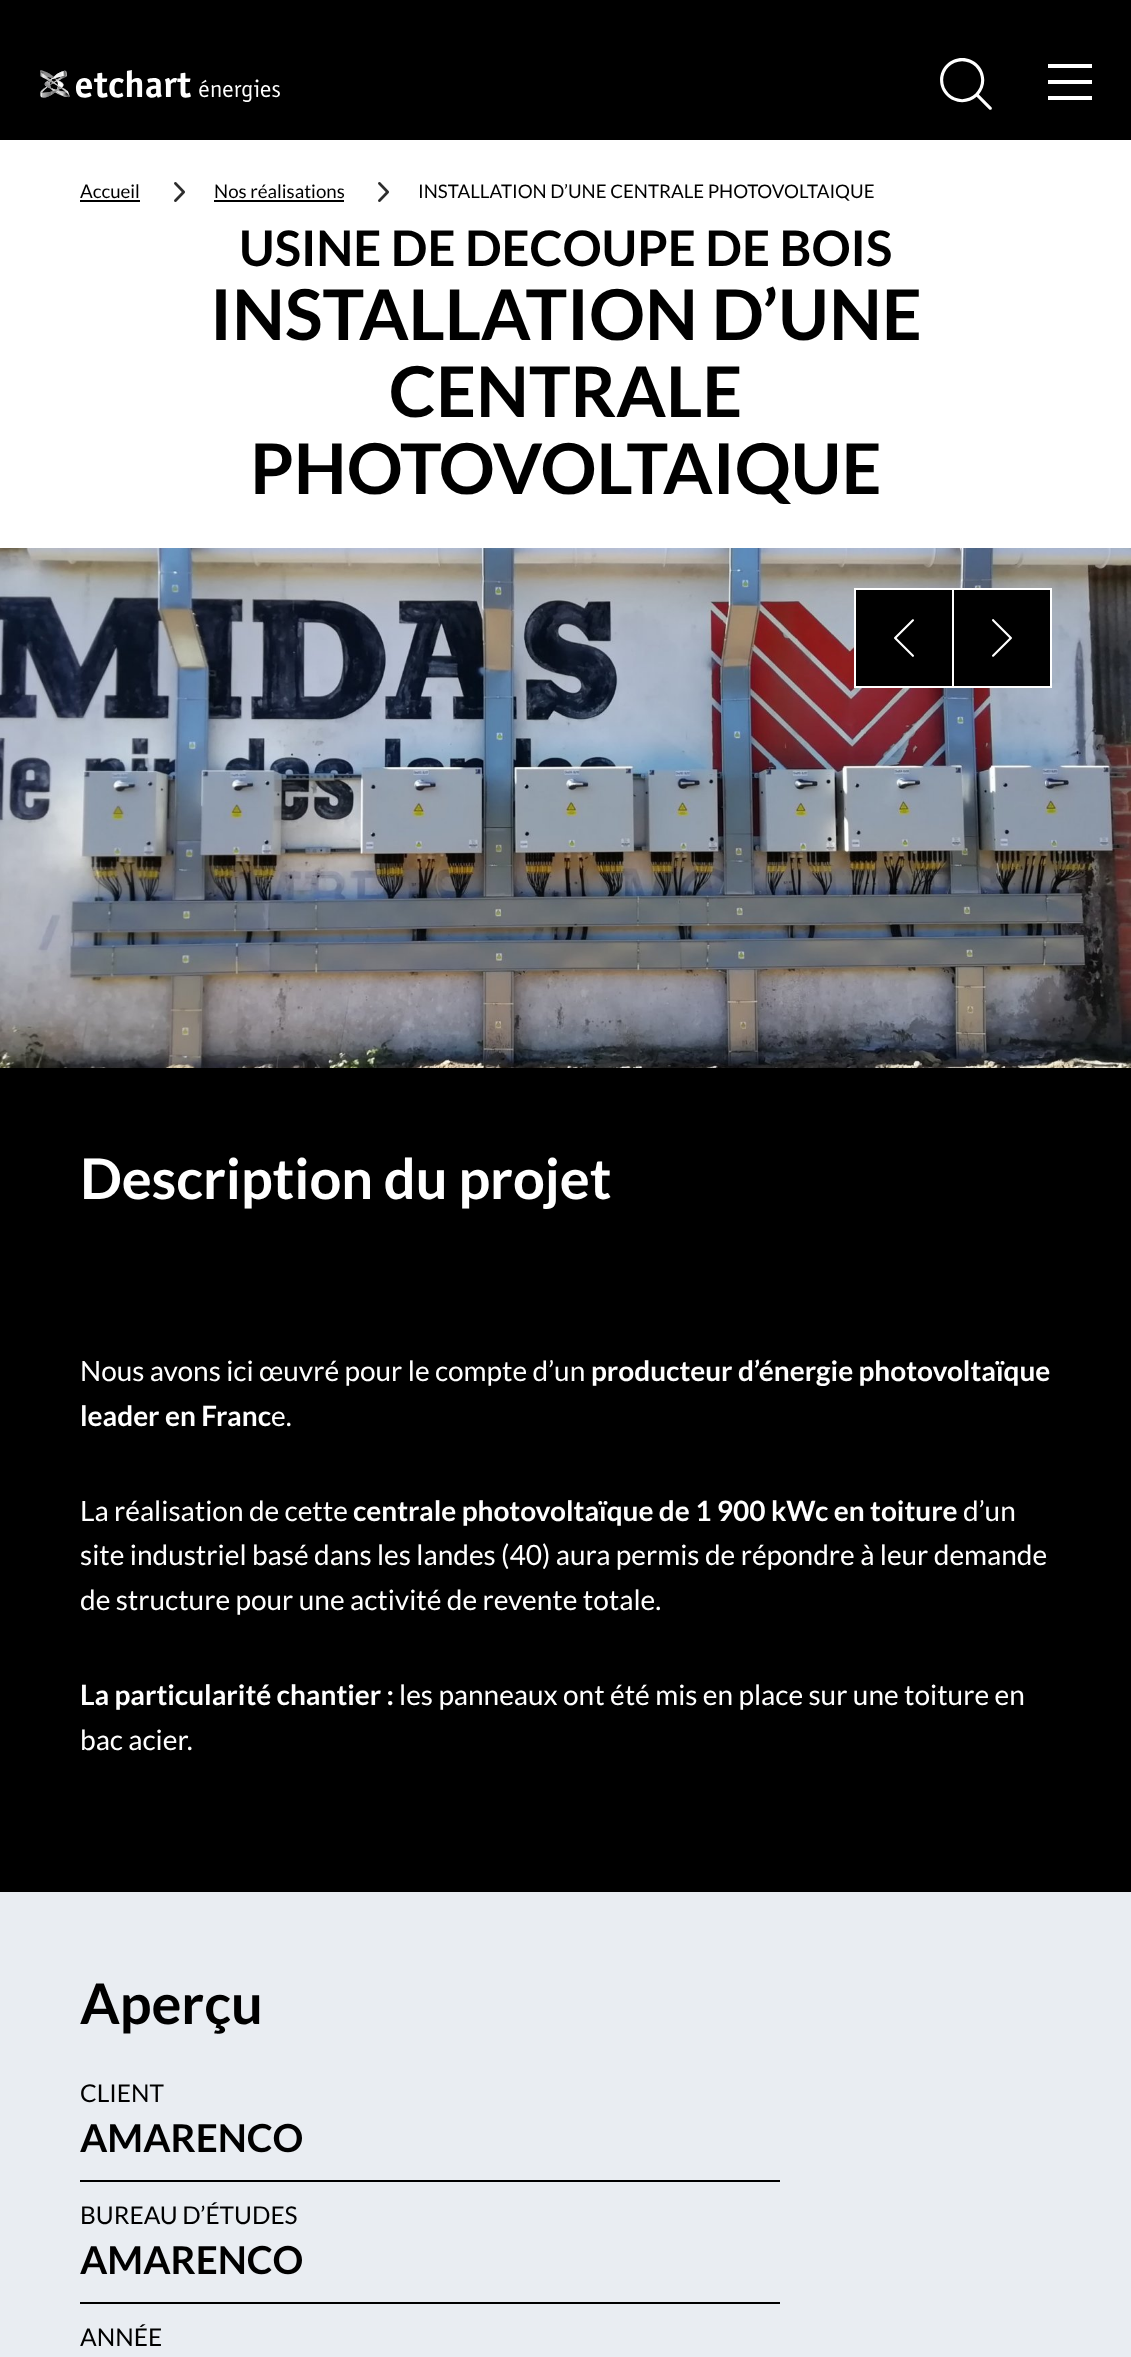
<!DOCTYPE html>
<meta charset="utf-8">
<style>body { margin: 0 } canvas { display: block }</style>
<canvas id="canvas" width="1131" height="2357"></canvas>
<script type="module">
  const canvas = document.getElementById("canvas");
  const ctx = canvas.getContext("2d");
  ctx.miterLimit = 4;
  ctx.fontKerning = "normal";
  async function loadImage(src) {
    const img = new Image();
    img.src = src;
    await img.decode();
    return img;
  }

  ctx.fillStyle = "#ffffff";
  ctx.fillRect(0, 0, 1131, 2357);
  ctx.fillStyle = "#000000";
  ctx.fillRect(0, 0, 1131, 140);
  ctx.drawImage(await loadImage("img1.png"), 940, 58, 52, 52);
  ctx.drawImage(await loadImage("img2.png"), 40, 70, 240, 32);
  ctx.fillStyle = "#ffffff";
  ctx.fillRect(1048, 64, 44, 4);
  ctx.fillRect(1048, 80, 44, 4);
  ctx.fillRect(1048, 96, 44, 4);
  ctx.font = "18.7px Lato";
  ctx.fillStyle = "#000000";
  ctx.fillText("Accueil", 80, 198);
  ctx.fillRect(80, 200, 60, 2);
  ctx.drawImage(await loadImage("img3.png"), 174, 182, 11, 20);
  ctx.fillText("Nos réalisations", 214, 198);
  ctx.fillRect(214, 200, 130, 2);
  ctx.drawImage(await loadImage("img3.png"), 378, 182, 11, 20);
  ctx.fillText("INSTALLATION D’UNE CENTRALE PHOTOVOLTAIQUE", 418, 198);
  ctx.font = "bold 49px Lato";
  ctx.fillText("USINE DE DECOUPE DE BOIS", 239, 266);
  ctx.font = "bold 70px Lato";
  ctx.fillText("INSTALLATION D’UNE", 210, 340);
  ctx.fillText("CENTRALE", 389, 417);
  ctx.fillText("PHOTOVOLTAIQUE", 250, 494);
  ctx.drawImage(await loadImage("img4.png"), 0, 548, 1131, 520);
  ctx.beginPath();
  ctx.rect(855, 589, 98, 98);
  ctx.fill();
  ctx.strokeStyle = "#ffffff";
  ctx.lineWidth = 2;
  ctx.stroke();
  ctx.drawImage(await loadImage("img5.png"), 894, 619, 20, 38);
  ctx.beginPath();
  ctx.rect(953, 589, 98, 98);
  ctx.fill();
  ctx.stroke();
  ctx.drawImage(await loadImage("img6.png"), 992, 619, 20, 38);
  ctx.fillRect(0, 1068, 1131, 824);
  ctx.font = "bold 56px Lato";
  ctx.fillStyle = "#ffffff";
  ctx.fillText("Description du projet", 80, 1199);
  ctx.font = "28px Lato";
  ctx.fillText("Nous avons ici œuvré pour le compte d’un", 80, 1381);
  ctx.font = "bold 28px Lato";
  ctx.fillText("producteur d’énergie photovoltaïque", 591, 1381);
  ctx.fillText("leader en Franc", 80, 1426);
  ctx.font = "28px Lato";
  ctx.fillText("e.", 271, 1426);
  ctx.fillText("La réalisation de cette", 80, 1521);
  ctx.font = "bold 28px Lato";
  ctx.fillText("centrale photovoltaïque de 1 900 kWc en toiture", 353, 1521);
  ctx.font = "28px Lato";
  ctx.fillText("d’un", 963, 1521);
  ctx.fillText("site industriel basé dans les landes (40) aura permis de répondre à leur demande", 80, 1565);
  ctx.fillText("de structure pour une activité de revente totale.", 80, 1610);
  ctx.font = "bold 28px Lato";
  ctx.fillText("La particularité chantier :", 80, 1705);
  ctx.font = "28px Lato";
  ctx.fillText("les panneaux ont été mis en place sur une toiture en", 399, 1705);
  ctx.fillText("bac acier.", 80, 1750);
  ctx.fillStyle = "#e9edf2";
  ctx.fillRect(0, 1892, 1131, 465);
  ctx.font = "bold 56px Lato";
  ctx.fillStyle = "#000000";
  ctx.fillText("Aperçu", 80, 2024);
  ctx.fillRect(80, 2180, 700, 2);
  ctx.font = "24.5px Lato";
  ctx.fillText("CLIENT", 80, 2102);
  ctx.font = "bold 38.5px Lato";
  ctx.fillText("AMARENCO", 80, 2152);
  ctx.fillRect(80, 2302, 700, 2);
  ctx.font = "24.5px Lato";
  ctx.fillText("BUREAU D’ÉTUDES", 80, 2224);
  ctx.font = "bold 38.5px Lato";
  ctx.fillText("AMARENCO", 80, 2274);
  ctx.font = "24.5px Lato";
  ctx.fillText("ANNÉE", 80, 2346);
</script>
